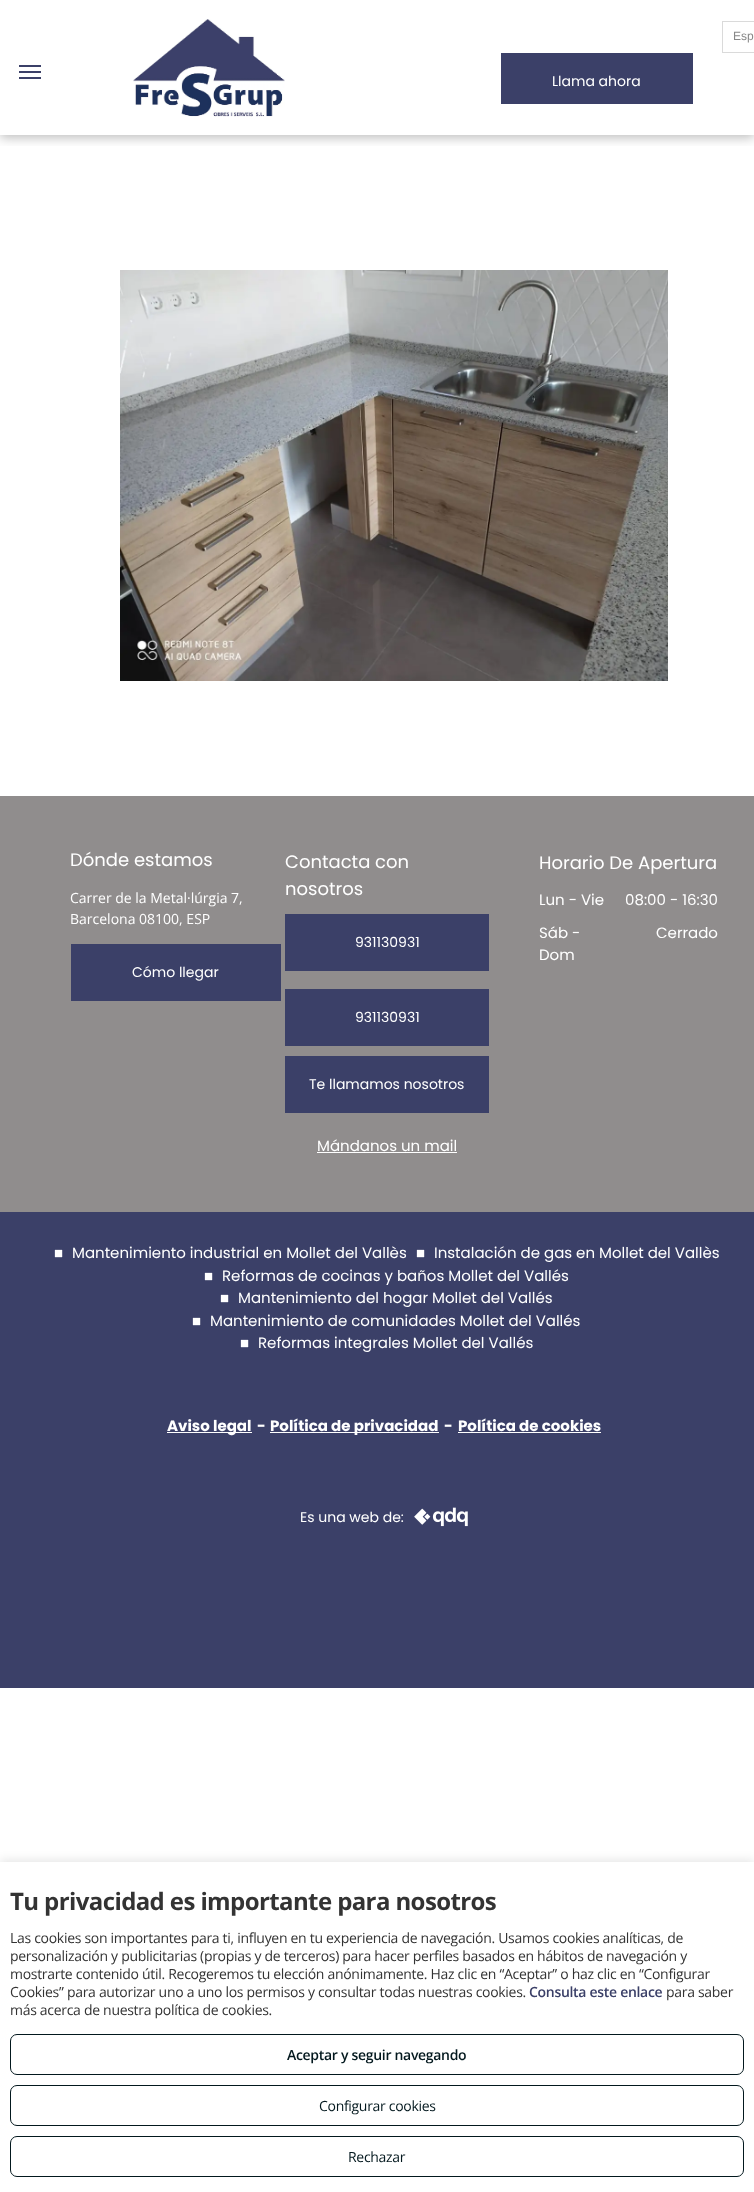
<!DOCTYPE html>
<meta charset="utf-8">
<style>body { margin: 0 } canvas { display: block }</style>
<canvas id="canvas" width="754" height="2192"></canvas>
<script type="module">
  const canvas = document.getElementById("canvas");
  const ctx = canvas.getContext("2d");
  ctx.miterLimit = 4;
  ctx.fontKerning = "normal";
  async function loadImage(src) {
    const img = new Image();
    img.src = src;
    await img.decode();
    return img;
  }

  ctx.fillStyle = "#ffffff";
  ctx.fillRect(0, 0, 754, 2192);
  ctx.save();
  ctx.beginPath();
  ctx.rect(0, 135, 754, 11);
  ctx.clip();
  ctx.fillStyle = "rgba(0, 0, 0, 0.25)";
  ctx.filter = "blur(5.5px)";
  ctx.beginPath();
  ctx.rect(0, 3, 754, 135);
  ctx.fill();
  ctx.filter = "none";
  ctx.restore();
  ctx.fillStyle = "#3b4068";
  ctx.fillRect(19, 65, 22, 2);
  ctx.fillRect(19, 71, 22, 2);
  ctx.fillRect(19, 77, 22, 2);
  ctx.drawImage(await loadImage("img1.png"), 133, 19, 152, 98);
  ctx.strokeStyle = "#dadada";
  ctx.strokeRect(722.5, 21.5, 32, 31);
  ctx.font = "12px Liberation Sans";
  ctx.fillStyle = "#888888";
  ctx.fillText("Esp", 733, 40);
  ctx.fillStyle = "#3b4068";
  ctx.fillRect(501, 53, 192, 51);
  ctx.font = "14px Poppins";
  ctx.fillStyle = "#ffffff";
  ctx.fillText("Llama ahora", 552, 86);
  ctx.drawImage(await loadImage("img2.png"), 120, 270, 548, 411);
  ctx.fillStyle = "#908d8d";
  ctx.fillRect(0, 796, 754, 416);
  ctx.font = "18px Poppins";
  ctx.fillStyle = "#ffffff";
  ctx.fillText("Dónde estamos", 70, 866);
  ctx.font = "14px Open Sans";
  ctx.fillText("Carrer de la Metal·lúrgia 7,", 70, 903);
  ctx.fillText("Barcelona 08100, ESP", 70, 924);
  ctx.fillStyle = "#3b4068";
  ctx.fillRect(71, 944, 210, 57);
  ctx.font = "14px Poppins";
  ctx.fillStyle = "#ffffff";
  ctx.fillText("Cómo llegar", 132, 977);
  ctx.font = "18px Poppins";
  ctx.fillText("Contacta con", 285, 868);
  ctx.fillText("nosotros", 285, 895);
  ctx.fillStyle = "#3b4068";
  ctx.fillRect(285, 914, 204, 57);
  ctx.font = "14px Poppins";
  ctx.fillStyle = "#ffffff";
  ctx.fillText("931130931", 355, 947);
  ctx.fillStyle = "#3b4068";
  ctx.fillRect(285, 989, 204, 57);
  ctx.fillStyle = "#ffffff";
  ctx.fillText("931130931", 355, 1022);
  ctx.fillStyle = "#3b4068";
  ctx.fillRect(285, 1056, 204, 57);
  ctx.fillStyle = "#ffffff";
  ctx.fillText("Te llamamos nosotros", 309, 1089);
  ctx.font = "15px Poppins";
  ctx.fillText("Mándanos un mail", 317, 1151);
  ctx.fillRect(317, 1152, 140, 1);
  ctx.font = "18px Poppins";
  ctx.fillText("Horario De Apertura", 539, 869);
  ctx.font = "15px Poppins";
  ctx.fillText("Lun - Vie", 539, 905);
  ctx.fillText("08:00 - 16:30", 625, 905);
  ctx.fillText("Sáb -", 539, 938);
  ctx.fillText("Dom", 539, 960);
  ctx.fillText("Cerrado", 656, 938);
  ctx.fillStyle = "#3b4068";
  ctx.fillRect(0, 1212, 754, 476);
  ctx.font = "15px Liberation Serif";
  ctx.fillStyle = "#ffffff";
  ctx.fillText("■", 54, 1258);
  ctx.font = "15px Poppins";
  ctx.fillText("Mantenimiento industrial en Mollet del Vallès", 72, 1258);
  ctx.font = "15px Liberation Serif";
  ctx.fillText("■", 416, 1258);
  ctx.font = "15px Poppins";
  ctx.fillText("Instalación de gas en Mollet del Vallès", 434, 1258);
  ctx.font = "15px Liberation Serif";
  ctx.fillText("■", 204, 1281);
  ctx.font = "15px Poppins";
  ctx.fillText("Reformas de cocinas y baños Mollet del Vallés", 222, 1281);
  ctx.font = "15px Liberation Serif";
  ctx.fillText("■", 220, 1303);
  ctx.font = "15px Poppins";
  ctx.fillText("Mantenimiento del hogar Mollet del Vallés", 238, 1303);
  ctx.font = "15px Liberation Serif";
  ctx.fillText("■", 192, 1326);
  ctx.font = "15px Poppins";
  ctx.fillText("Mantenimiento de comunidades Mollet del Vallés", 210, 1326);
  ctx.font = "15px Liberation Serif";
  ctx.fillText("■", 240, 1348);
  ctx.font = "15px Poppins";
  ctx.fillText("Reformas integrales Mollet del Vallés", 258, 1348);
  ctx.fillRect(167, 1432, 85, 1);
  ctx.font = "bold 15px Poppins";
  ctx.fillText("Aviso legal", 167, 1431);
  ctx.fillText("-", 257, 1431);
  ctx.fillRect(270, 1432, 169, 1);
  ctx.fillText("Política de privacidad", 270, 1431);
  ctx.fillText("-", 444, 1431);
  ctx.fillText("Política de cookies", 458, 1431);
  ctx.fillRect(458, 1432, 143, 1);
  ctx.font = "14px Poppins";
  ctx.fillText("Es una web de:", 300, 1522);
  ctx.drawImage(await loadImage("img3.png"), 414, 1507, 54, 20);
  ctx.fillStyle = "rgba(0, 0, 0, 0.1)";
  ctx.filter = "blur(5px)";
  ctx.beginPath();
  ctx.rect(0, 1860, 754, 330);
  ctx.fill();
  ctx.filter = "none";
  ctx.fillStyle = "#ffffff";
  ctx.fillRect(0, 1862, 754, 330);
  ctx.letterSpacing = "-0.6px";
  ctx.font = "bold 24px Open Sans";
  ctx.fillStyle = "#333333";
  ctx.fillText("Tu privacidad es importante para nosotros", 10, 1910);
  ctx.letterSpacing = "-0.3px";
  ctx.font = "14px Open Sans";
  ctx.fillText("Las cookies son importantes para ti, influyen en tu experiencia de navegación. Usamos cookies analíticas, de", 10, 1943);
  ctx.fillText("personalización y publicitarias (propias y de terceros) para hacer perfiles basados en hábitos de navegación y", 10, 1961);
  ctx.fillText("mostrarte contenido útil. Recogeremos tu elección anónimamente. Haz clic en “Aceptar” o haz clic en “Configurar", 10, 1979);
  ctx.fillText("Cookies” para autorizar uno a uno los permisos y consultar todas nuestras cookies.", 10, 1997);
  ctx.font = "600 14px Open Sans";
  ctx.fillStyle = "#3b4068";
  ctx.fillText("Consulta este enlace", 529, 1997);
  ctx.font = "14px Open Sans";
  ctx.fillStyle = "#333333";
  ctx.fillText("para saber", 666, 1997);
  ctx.fillText("más acerca de nuestra política de cookies.", 10, 2015);
  ctx.beginPath();
  ctx.roundRect(10.5, 2034.5, 733, 40, 6.5);
  ctx.strokeStyle = "#03181e";
  ctx.stroke();
  ctx.font = "600 14px Open Sans";
  ctx.fillStyle = "#03181e";
  ctx.fillText("Aceptar y seguir navegando", 287, 2060);
  ctx.beginPath();
  ctx.roundRect(10.5, 2085.5, 733, 40, 6.5);
  ctx.stroke();
  ctx.font = "14px Open Sans";
  ctx.fillText("Configurar cookies", 319, 2111);
  ctx.beginPath();
  ctx.roundRect(10.5, 2136.5, 733, 40, 6.5);
  ctx.stroke();
  ctx.fillText("Rechazar", 348, 2162);
</script>
